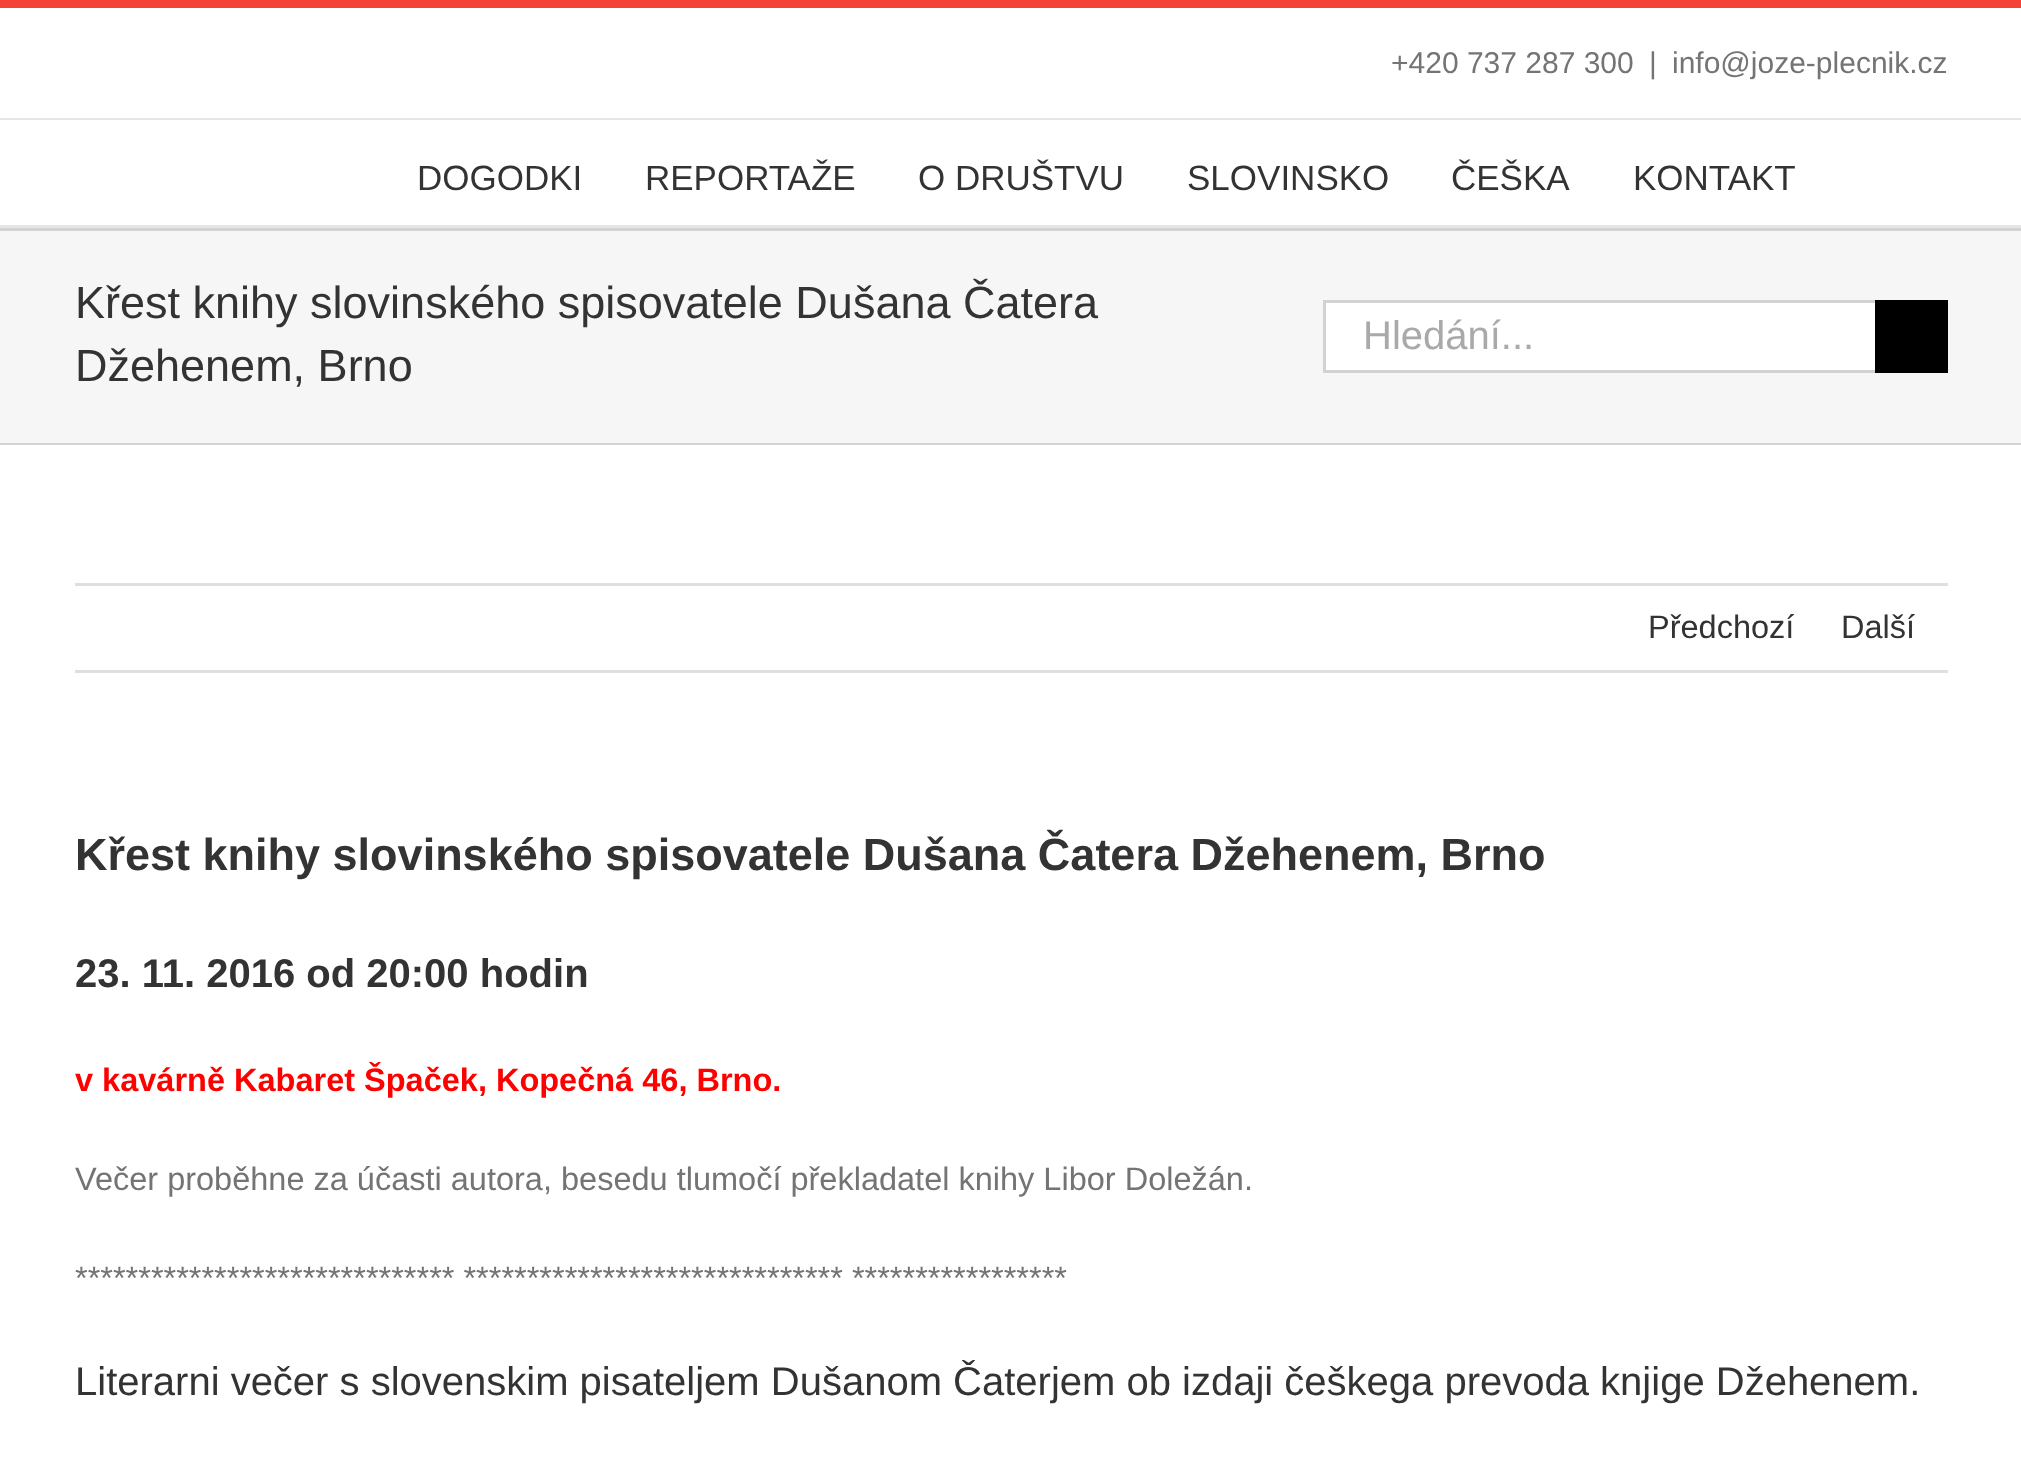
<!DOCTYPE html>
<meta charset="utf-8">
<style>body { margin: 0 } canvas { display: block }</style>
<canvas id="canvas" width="2021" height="1469"></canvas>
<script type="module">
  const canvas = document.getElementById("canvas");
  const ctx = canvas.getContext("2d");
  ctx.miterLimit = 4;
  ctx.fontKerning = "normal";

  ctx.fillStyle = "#ffffff";
  ctx.fillRect(0, 0, 2021, 1469);
  ctx.fillStyle = "#f44336";
  ctx.fillRect(0, 0, 2021, 8);
  ctx.fillStyle = "#e5e5e5";
  ctx.fillRect(0, 118, 2021, 2);
  ctx.font = "30px Liberation Sans";
  ctx.fillStyle = "#747474";
  ctx.fillText("+420 737 287 300", 1391, 73);
  ctx.fillText("|", 1649, 73);
  ctx.fillText("info@joze-plecnik.cz", 1672, 73);
  ctx.fillStyle = "#e5e5e5";
  ctx.fillRect(0, 225, 2021, 3);
  ctx.font = "35px Liberation Sans";
  ctx.fillStyle = "#333333";
  ctx.fillText("DOGODKI", 417, 190);
  ctx.fillText("REPORTAŽE", 645, 190);
  ctx.fillText("O DRUŠTVU", 918, 190);
  ctx.fillText("SLOVINSKO", 1187, 190);
  ctx.fillText("ČEŠKA", 1451, 190);
  ctx.fillText("KONTAKT", 1633, 190);
  ctx.fillStyle = "#f6f6f6";
  ctx.fillRect(0, 231, 2021, 212);
  ctx.fillStyle = "#d2d3d4";
  ctx.fillRect(0, 228, 2021, 3);
  ctx.fillRect(0, 443, 2021, 2);
  ctx.font = "45px Liberation Sans";
  ctx.fillStyle = "#333333";
  ctx.fillText("Křest knihy slovinského spisovatele Dušana Čatera", 75, 318);
  ctx.fillText("Džehenem, Brno", 75, 381);
  ctx.fillStyle = "#ffffff";
  ctx.fillRect(1326, 303, 549, 67);
  ctx.fillStyle = "#d2d2d2";
  ctx.fillRect(1323, 300, 552, 3);
  ctx.fillRect(1323, 370, 552, 3);
  ctx.fillRect(1323, 300, 3, 73);
  ctx.font = "40px Liberation Sans";
  ctx.fillStyle = "#aaa9a9";
  ctx.fillText("Hledání...", 1363, 349);
  ctx.fillStyle = "#000000";
  ctx.fillRect(1875, 300, 73, 73);
  ctx.fillStyle = "#e0dede";
  ctx.fillRect(75, 583, 1873, 3);
  ctx.fillRect(75, 670, 1873, 3);
  ctx.font = "32.5px Liberation Sans";
  ctx.fillStyle = "#333333";
  ctx.fillText("Předchozí", 1648, 638);
  ctx.fillText("Další", 1841, 638);
  ctx.font = "bold 45px Liberation Sans";
  ctx.fillText("Křest knihy slovinského spisovatele Dušana Čatera Džehenem, Brno", 75, 870);
  ctx.font = "bold 40px Liberation Sans";
  ctx.fillText("23. 11. 2016 od 20:00 hodin", 75, 987);
  ctx.font = "bold 32.5px Liberation Sans";
  ctx.fillStyle = "#ff0000";
  ctx.fillText("v kavárně Kabaret Špaček, Kopečná 46, Brno.", 75, 1091);
  ctx.font = "32.5px Liberation Sans";
  ctx.fillStyle = "#747474";
  ctx.fillText("Večer proběhne za účasti autora, besedu tlumočí překladatel knihy Libor Doležán.", 75, 1190);
  ctx.fillText("****************************** ****************************** *****************", 75, 1289);
  ctx.font = "40px Liberation Sans";
  ctx.fillStyle = "#333333";
  ctx.fillText("Literarni večer s slovenskim pisateljem Dušanom Čaterjem ob izdaji češkega prevoda knjige Džehenem.", 75, 1395);
</script>
